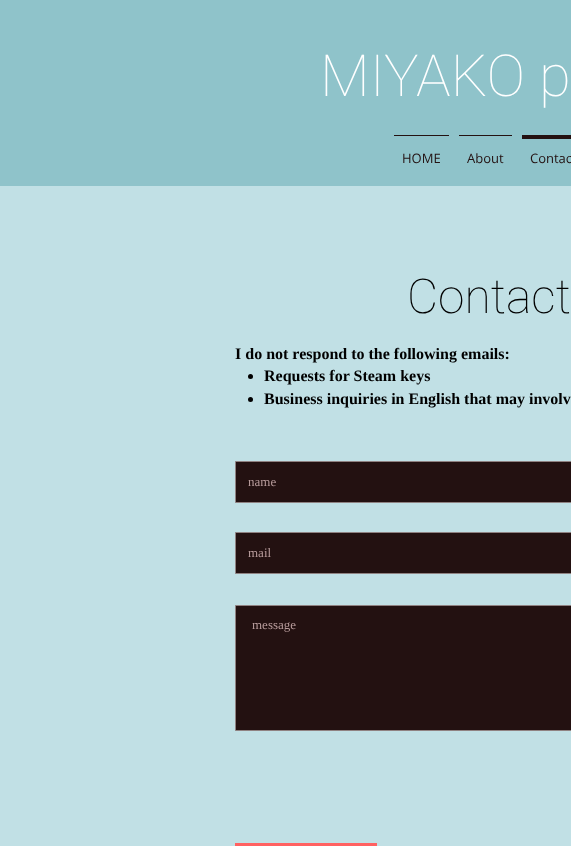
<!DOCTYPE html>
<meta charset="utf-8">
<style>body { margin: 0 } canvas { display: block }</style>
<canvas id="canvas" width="571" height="846"></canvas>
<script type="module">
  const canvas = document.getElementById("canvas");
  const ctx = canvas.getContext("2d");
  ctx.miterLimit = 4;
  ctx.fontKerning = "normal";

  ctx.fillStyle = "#c1e0e5";
  ctx.fillRect(0, 0, 571, 846);
  ctx.fillStyle = "#8fc3ca";
  ctx.fillRect(0, 0, 571, 186);
  ctx.font = "100 58px Roboto";
  ctx.fillStyle = "#ffffff";
  ctx.fillText("MIYAKO p", 320, 96);
  ctx.fillStyle = "#231111";
  ctx.fillRect(394, 135, 55, 1);
  ctx.font = "13px Open Sans";
  ctx.fillText("HOME", 402, 163);
  ctx.fillRect(459, 135, 53, 1);
  ctx.fillText("About", 467, 163);
  ctx.fillRect(522, 135, 49, 4);
  ctx.fillText("Contac", 530, 163);
  ctx.font = "100 48px Roboto";
  ctx.fillStyle = "#000000";
  ctx.fillText("Contact", 407, 313);
  ctx.font = "bold 16px Liberation Serif";
  ctx.fillText("I do not respond to the following emails:", 235, 359);
  ctx.beginPath();
  ctx.arc(250.5, 376.5, 2.5, 0, Math.PI * 2);
  ctx.fill();
  ctx.fillText("Requests for Steam keys", 264, 381);
  ctx.beginPath();
  ctx.arc(250.5, 399.5, 2.5, 0, Math.PI * 2);
  ctx.fill();
  ctx.fillText("Business inquiries in English that may involv", 264, 404);
  ctx.fillStyle = "#231111";
  ctx.beginPath();
  ctx.rect(235.5, 461.5, 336, 41);
  ctx.fill();
  ctx.strokeStyle = "#8f8282";
  ctx.stroke();
  ctx.font = "13px Liberation Serif";
  ctx.fillStyle = "#b89c9c";
  ctx.fillText("name", 248, 486);
  ctx.fillStyle = "#231111";
  ctx.beginPath();
  ctx.rect(235.5, 532.5, 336, 41);
  ctx.fill();
  ctx.stroke();
  ctx.fillStyle = "#b89c9c";
  ctx.fillText("mail", 248, 557);
  ctx.fillStyle = "#231111";
  ctx.beginPath();
  ctx.rect(235.5, 605.5, 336, 125);
  ctx.fill();
  ctx.stroke();
  ctx.fillStyle = "#b89c9c";
  ctx.fillText("message", 252, 629);
  ctx.fillStyle = "#ff6161";
  ctx.fillRect(235, 843, 142, 3);
</script>
